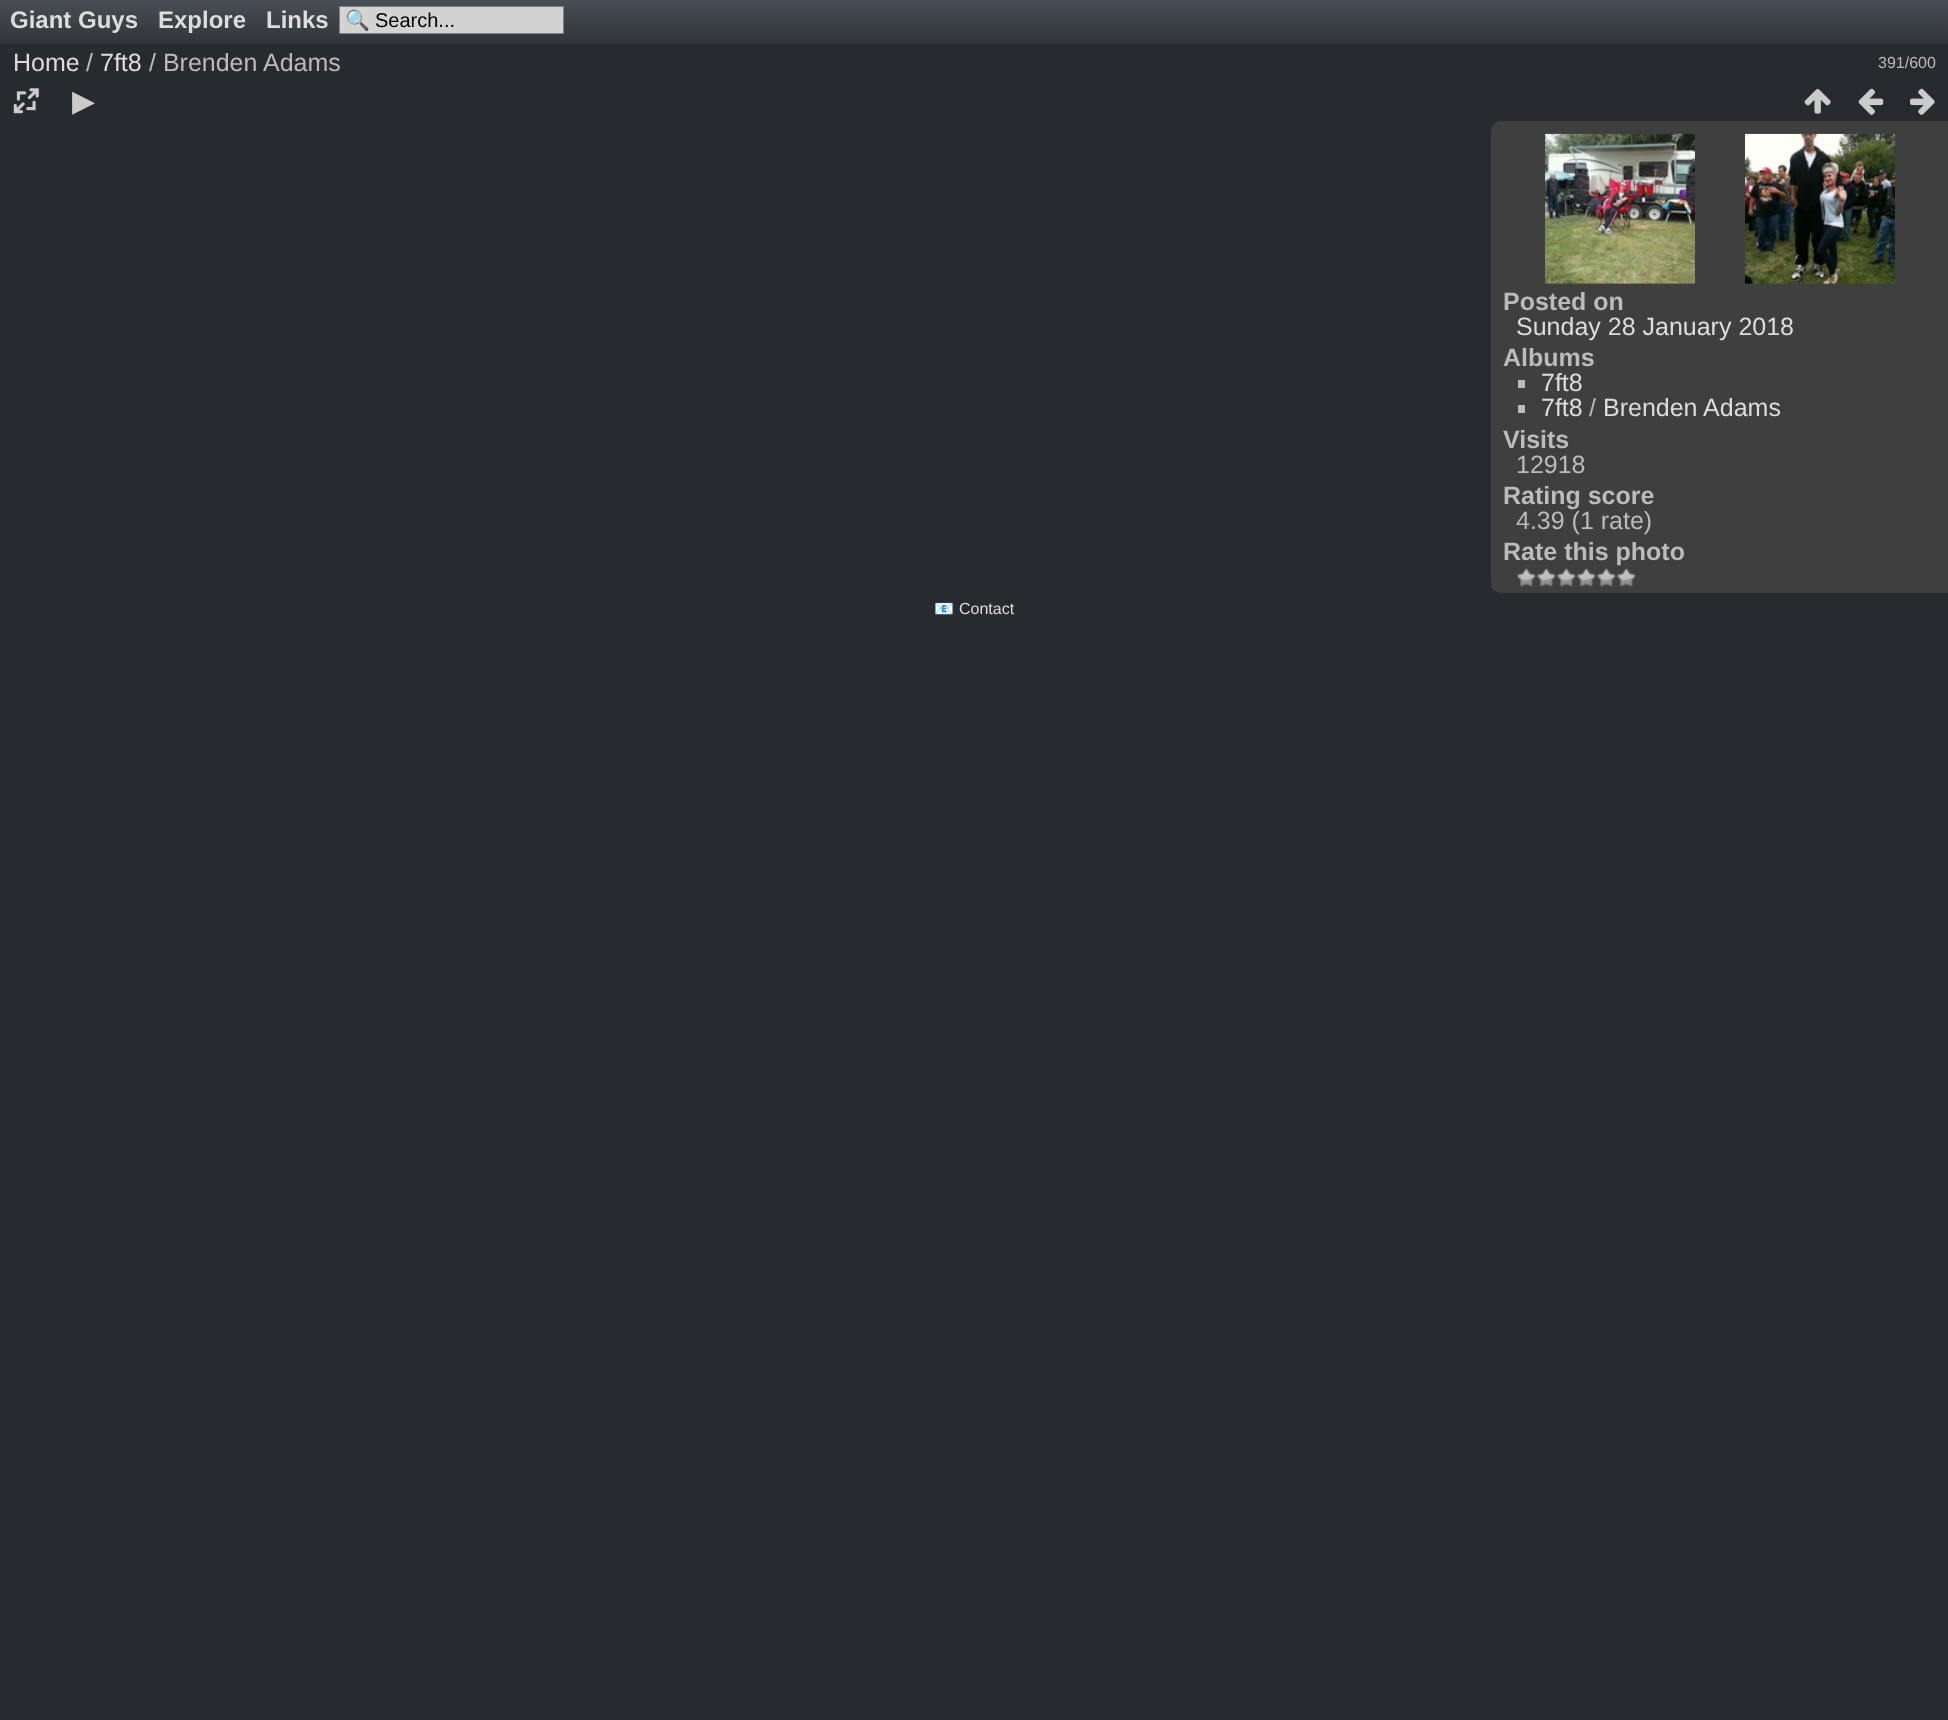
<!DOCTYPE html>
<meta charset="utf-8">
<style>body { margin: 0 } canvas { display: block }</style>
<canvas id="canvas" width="1948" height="1720"></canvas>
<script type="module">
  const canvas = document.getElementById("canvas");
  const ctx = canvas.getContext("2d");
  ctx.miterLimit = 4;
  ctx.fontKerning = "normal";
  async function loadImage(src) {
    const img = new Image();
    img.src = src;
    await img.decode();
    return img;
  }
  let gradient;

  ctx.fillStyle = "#272b30";
  ctx.fillRect(0, 0, 1948, 1720);
  gradient = ctx.createLinearGradient(974, 0, 974, 44);
  gradient.addColorStop(0, "#484e55");
  gradient.addColorStop(0.6, "#3a3f44");
  gradient.addColorStop(1, "#313539");
  ctx.fillStyle = gradient;
  ctx.fillRect(0, 0, 1948, 44);
  ctx.font = "bold 24px Liberation Sans";
  ctx.fillStyle = "#dddddd";
  ctx.fillText("Giant Guys", 10, 28);
  ctx.fillText("Explore", 158, 28);
  ctx.fillText("Links", 266, 28);
  ctx.fillStyle = "#d3d3d3";
  ctx.beginPath();
  ctx.rect(339.5, 6.5, 224, 27);
  ctx.fill();
  ctx.strokeStyle = "#808080";
  ctx.stroke();
  ctx.font = "20px Noto Color Emoji";
  ctx.fillStyle = "#000000";
  ctx.fillText("🔍", 345, 27);
  ctx.font = "20px Liberation Sans";
  ctx.fillText("Search...", 375, 27);
  ctx.font = "25px Liberation Sans";
  ctx.fillStyle = "#dddddd";
  ctx.fillText("Home", 13, 71);
  ctx.fillStyle = "#bbbbbb";
  ctx.fillText("/", 86, 71);
  ctx.fillStyle = "#dddddd";
  ctx.fillText("7ft8", 100, 71);
  ctx.fillStyle = "#bbbbbb";
  ctx.fillText("/ Brenden Adams", 149, 71);
  ctx.font = "16px Liberation Sans";
  ctx.fillText("391/600", 1878, 68);
  ctx.drawImage(await loadImage("img1.png"), 13, 88, 26, 26);
  ctx.font = "30px DejaVu Sans";
  ctx.fillStyle = "#cbcbcc";
  ctx.fillText("▶", 72, 111);
  ctx.drawImage(await loadImage("img2.png"), 1804, 89, 27, 25);
  ctx.drawImage(await loadImage("img3.png"), 1858, 88, 26, 27);
  ctx.drawImage(await loadImage("img4.png"), 1910, 88, 25, 27);
  ctx.fillStyle = "#3f3f3f";
  ctx.beginPath();
  ctx.moveTo(1501, 121);
  ctx.lineTo(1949, 121);
  ctx.lineTo(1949, 593);
  ctx.lineTo(1501, 593);
  ctx.bezierCurveTo(1495.5, 593, 1491, 588.5, 1491, 583);
  ctx.lineTo(1491, 131);
  ctx.bezierCurveTo(1491, 125.5, 1495.5, 121, 1501, 121);
  ctx.closePath();
  ctx.fill();
  ctx.drawImage(await loadImage("img5.png"), 1545, 133, 150, 151);
  ctx.drawImage(await loadImage("img6.png"), 1745, 133, 150, 151);
  ctx.font = "bold 25px Liberation Sans";
  ctx.fillStyle = "#bbbbbb";
  ctx.fillText("Posted on", 1503, 310);
  ctx.font = "25px Liberation Sans";
  ctx.fillStyle = "#dddddd";
  ctx.fillText("Sunday 28 January 2018", 1516, 335);
  ctx.font = "bold 25px Liberation Sans";
  ctx.fillStyle = "#bbbbbb";
  ctx.fillText("Albums", 1503, 366);
  ctx.fillRect(1518, 380, 7, 8);
  ctx.font = "25px Liberation Sans";
  ctx.fillStyle = "#dddddd";
  ctx.fillText("7ft8", 1541, 391);
  ctx.fillStyle = "#bbbbbb";
  ctx.fillRect(1518, 405, 7, 8);
  ctx.fillStyle = "#dddddd";
  ctx.fillText("7ft8", 1541, 416);
  ctx.fillStyle = "#bbbbbb";
  ctx.fillText("/", 1589, 416);
  ctx.fillStyle = "#dddddd";
  ctx.fillText("Brenden Adams", 1603, 416);
  ctx.font = "bold 25px Liberation Sans";
  ctx.fillStyle = "#bbbbbb";
  ctx.fillText("Visits", 1503, 448);
  ctx.font = "25px Liberation Sans";
  ctx.fillText("12918", 1516, 473);
  ctx.font = "bold 25px Liberation Sans";
  ctx.fillText("Rating score", 1503, 504);
  ctx.font = "25px Liberation Sans";
  ctx.fillText("4.39 (1 rate)", 1516, 529);
  ctx.font = "bold 25px Liberation Sans";
  ctx.fillText("Rate this photo", 1503, 560);
  ctx.drawImage(await loadImage("img7.png"), 1516, 568, 20, 19);
  ctx.drawImage(await loadImage("img7.png"), 1536, 568, 20, 19);
  ctx.drawImage(await loadImage("img7.png"), 1556, 568, 20, 19);
  ctx.drawImage(await loadImage("img7.png"), 1576, 568, 20, 19);
  ctx.drawImage(await loadImage("img7.png"), 1596, 568, 20, 19);
  ctx.drawImage(await loadImage("img7.png"), 1616, 568, 20, 19);
  ctx.font = "16px Noto Color Emoji";
  ctx.fillStyle = "#dddddd";
  ctx.fillText("📧", 934, 614);
  ctx.font = "16px Liberation Sans";
  ctx.fillText("Contact", 959, 614);
</script>
